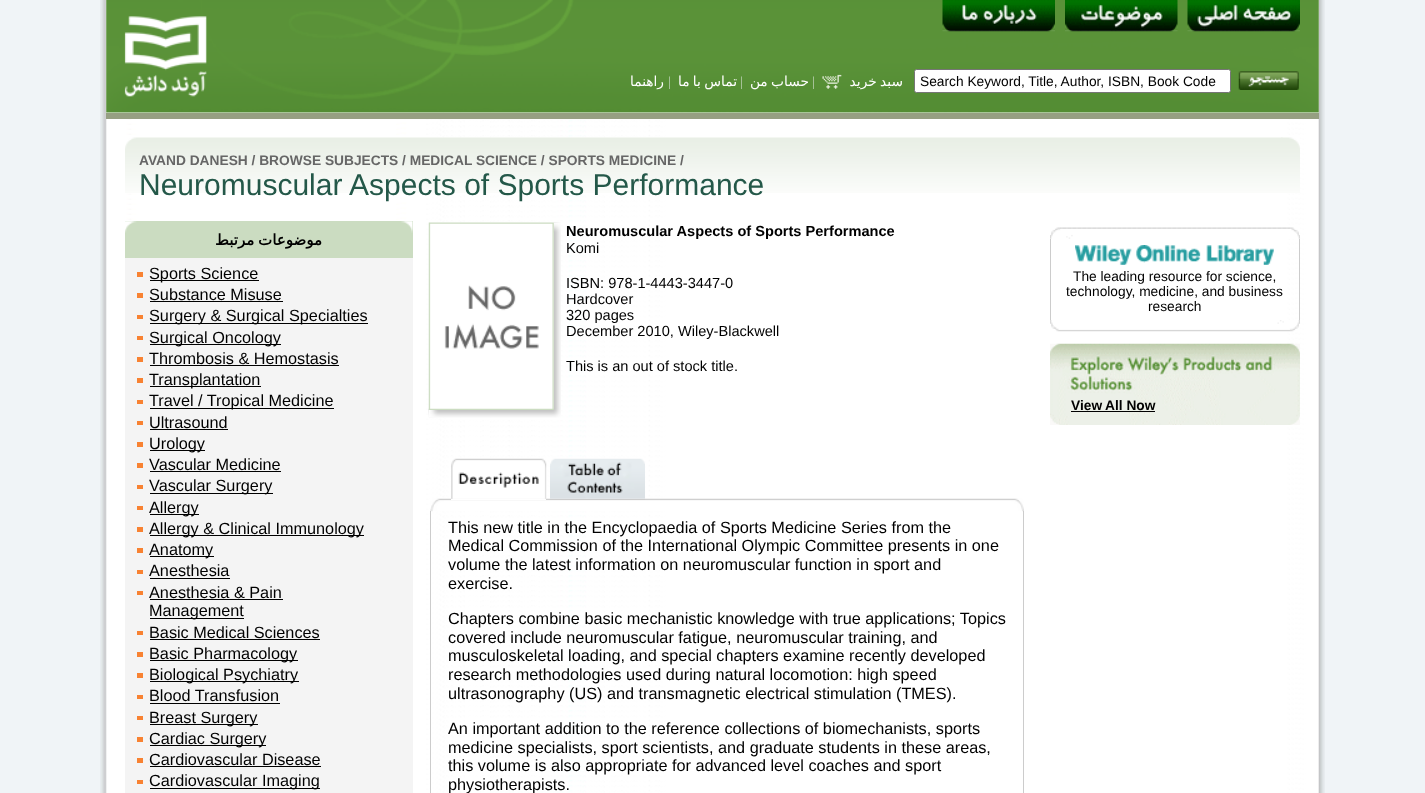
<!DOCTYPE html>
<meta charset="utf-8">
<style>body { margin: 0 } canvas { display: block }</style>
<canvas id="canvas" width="1425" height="793"></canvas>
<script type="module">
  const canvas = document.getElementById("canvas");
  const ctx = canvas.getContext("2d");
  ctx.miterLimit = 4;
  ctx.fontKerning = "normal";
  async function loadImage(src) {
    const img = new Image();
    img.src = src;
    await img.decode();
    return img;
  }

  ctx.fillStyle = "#f0f4f7";
  ctx.fillRect(0, 0, 1425, 793);
  ctx.drawImage(await loadImage("img1.png"), 100, 0, 1225, 793);
  ctx.drawImage(await loadImage("img2.png"), 106, 0, 1213, 113);
  ctx.fillStyle = "#969f82";
  ctx.fillRect(106, 113, 1213, 6);
  ctx.drawImage(await loadImage("img3.png"), 942, 0, 113, 32);
  ctx.drawImage(await loadImage("img4.png"), 1065, 0, 113, 32);
  ctx.drawImage(await loadImage("img5.png"), 1187, 0, 113, 32);
  ctx.direction = "rtl";
  ctx.font = "13.75px DejaVu Sans";
  ctx.fillStyle = "#ffffff";
  ctx.fillText("راهنما", 664, 86);
  ctx.direction = "ltr";
  ctx.font = "13.75px Liberation Serif";
  ctx.fillStyle = "#c4d6bc";
  ctx.fillText("|", 668, 86);
  ctx.wordSpacing = "-1px";
  ctx.direction = "rtl";
  ctx.font = "13.75px DejaVu Sans";
  ctx.fillStyle = "#ffffff";
  ctx.fillText("تماس با ما", 737, 86);
  ctx.wordSpacing = "0px";
  ctx.direction = "ltr";
  ctx.font = "13.75px Liberation Serif";
  ctx.fillStyle = "#c4d6bc";
  ctx.fillText("|", 740, 86);
  ctx.wordSpacing = "-1px";
  ctx.direction = "rtl";
  ctx.font = "13.75px DejaVu Sans";
  ctx.fillStyle = "#ffffff";
  ctx.fillText("حساب من", 809, 86);
  ctx.wordSpacing = "0px";
  ctx.direction = "ltr";
  ctx.font = "13.75px Liberation Serif";
  ctx.fillStyle = "#c4d6bc";
  ctx.fillText("|", 812, 86);
  ctx.drawImage(await loadImage("img6.png"), 822, 74, 20, 15);
  ctx.wordSpacing = "-1px";
  ctx.direction = "rtl";
  ctx.font = "13.75px DejaVu Sans";
  ctx.fillStyle = "#ffffff";
  ctx.fillText("سبد خرید", 903, 86);
  ctx.beginPath();
  ctx.roundRect(914.5, 69.5, 316, 23, 2);
  ctx.fill();
  ctx.strokeStyle = "#767676";
  ctx.stroke();
  ctx.wordSpacing = "0px";
  ctx.direction = "ltr";
  ctx.font = "13.75px Liberation Sans";
  ctx.fillStyle = "#000000";
  ctx.fillText("Search Keyword, Title, Author, ISBN, Book Code", 920, 86);
  ctx.drawImage(await loadImage("img7.png"), 1238, 71, 61, 19);
  ctx.drawImage(await loadImage("img8.png"), 125, 137, 1158, 56);
  ctx.drawImage(await loadImage("img9.png"), 1281, 137, 19, 56);
  ctx.font = "bold 13.75px Liberation Sans";
  ctx.fillStyle = "#666666";
  ctx.fillText("AVAND DANESH / BROWSE SUBJECTS / MEDICAL SCIENCE / SPORTS MEDICINE /", 139, 165);
  ctx.font = "30px Liberation Sans";
  ctx.fillStyle = "#245849";
  ctx.fillText("Neuromuscular Aspects of Sports Performance", 139, 195);
  ctx.fillStyle = "#cbdcc1";
  ctx.fillRect(125, 221, 288, 37);
  ctx.drawImage(await loadImage("img10.png"), 125, 221, 288, 12);
  ctx.wordSpacing = "-1px";
  ctx.direction = "rtl";
  ctx.font = "bold 15px DejaVu Sans";
  ctx.fillStyle = "#000000";
  ctx.fillText("موضوعات مرتبط", 322, 245);
  ctx.fillStyle = "#f4f4f4";
  ctx.fillRect(125, 258, 288, 535);
  ctx.fillStyle = "#f88232";
  ctx.fillRect(137, 272, 6, 5);
  ctx.fillStyle = "#000000";
  ctx.fillRect(150, 280, 109, 1);
  ctx.wordSpacing = "0px";
  ctx.direction = "ltr";
  ctx.font = "16.25px Liberation Sans";
  ctx.fillText("Sports Science", 149, 279);
  ctx.fillStyle = "#f88232";
  ctx.fillRect(137, 293, 6, 5);
  ctx.fillStyle = "#000000";
  ctx.fillText("Substance Misuse", 149, 300);
  ctx.fillRect(150, 301, 133, 1);
  ctx.fillStyle = "#f88232";
  ctx.fillRect(137, 315, 6, 4);
  ctx.fillStyle = "#000000";
  ctx.fillRect(150, 323, 218, 1);
  ctx.fillText("Surgery & Surgical Specialties", 149, 321);
  ctx.fillStyle = "#f88232";
  ctx.fillRect(137, 336, 6, 4);
  ctx.fillStyle = "#000000";
  ctx.fillRect(150, 344, 131, 1);
  ctx.fillText("Surgical Oncology", 149, 343);
  ctx.fillStyle = "#f88232";
  ctx.fillRect(137, 357, 6, 5);
  ctx.fillStyle = "#000000";
  ctx.fillText("Thrombosis & Hemostasis", 149, 364);
  ctx.fillRect(150, 365, 189, 1);
  ctx.fillStyle = "#f88232";
  ctx.fillRect(137, 378, 6, 5);
  ctx.fillStyle = "#000000";
  ctx.fillRect(150, 386, 111, 1);
  ctx.fillText("Transplantation", 149, 385);
  ctx.fillStyle = "#f88232";
  ctx.fillRect(137, 400, 6, 4);
  ctx.fillStyle = "#000000";
  ctx.fillRect(150, 408, 184, 1);
  ctx.fillText("Travel / Tropical Medicine", 149, 406);
  ctx.fillStyle = "#f88232";
  ctx.fillRect(137, 421, 6, 4);
  ctx.fillStyle = "#000000";
  ctx.fillText("Ultrasound", 149, 428);
  ctx.fillRect(150, 429, 78, 1);
  ctx.fillStyle = "#f88232";
  ctx.fillRect(137, 442, 6, 5);
  ctx.fillStyle = "#000000";
  ctx.fillRect(150, 450, 55, 1);
  ctx.fillText("Urology", 149, 449);
  ctx.fillStyle = "#f88232";
  ctx.fillRect(137, 463, 6, 5);
  ctx.fillStyle = "#000000";
  ctx.fillText("Vascular Medicine", 149, 470);
  ctx.fillRect(150, 471, 131, 1);
  ctx.fillStyle = "#f88232";
  ctx.fillRect(137, 485, 6, 4);
  ctx.fillStyle = "#000000";
  ctx.fillRect(150, 493, 123, 1);
  ctx.fillText("Vascular Surgery", 149, 491);
  ctx.fillStyle = "#f88232";
  ctx.fillRect(137, 506, 6, 4);
  ctx.fillStyle = "#000000";
  ctx.fillRect(150, 514, 49, 1);
  ctx.fillText("Allergy", 149, 513);
  ctx.fillStyle = "#f88232";
  ctx.fillRect(137, 527, 6, 5);
  ctx.fillStyle = "#000000";
  ctx.fillRect(150, 535, 214, 1);
  ctx.fillText("Allergy & Clinical Immunology", 149, 534);
  ctx.fillStyle = "#f88232";
  ctx.fillRect(137, 548, 6, 5);
  ctx.fillStyle = "#000000";
  ctx.fillRect(150, 556, 64, 1);
  ctx.fillText("Anatomy", 149, 555);
  ctx.fillStyle = "#f88232";
  ctx.fillRect(137, 570, 6, 4);
  ctx.fillStyle = "#000000";
  ctx.fillText("Anesthesia", 149, 576);
  ctx.fillRect(150, 578, 80, 1);
  ctx.fillStyle = "#f88232";
  ctx.fillRect(137, 591, 6, 4);
  ctx.fillStyle = "#000000";
  ctx.fillText("Anesthesia & Pain", 149, 598);
  ctx.fillRect(150, 599, 133, 1);
  ctx.fillRect(150, 618, 94, 1);
  ctx.fillText("Management", 149, 616);
  ctx.fillStyle = "#f88232";
  ctx.fillRect(137, 631, 6, 4);
  ctx.fillStyle = "#000000";
  ctx.fillText("Basic Medical Sciences", 149, 638);
  ctx.fillRect(150, 639, 170, 1);
  ctx.fillStyle = "#f88232";
  ctx.fillRect(137, 652, 6, 5);
  ctx.fillStyle = "#000000";
  ctx.fillRect(150, 660, 148, 1);
  ctx.fillText("Basic Pharmacology", 149, 659);
  ctx.fillStyle = "#f88232";
  ctx.fillRect(137, 673, 6, 5);
  ctx.fillStyle = "#000000";
  ctx.fillRect(150, 681, 149, 1);
  ctx.fillText("Biological Psychiatry", 149, 680);
  ctx.fillStyle = "#f88232";
  ctx.fillRect(137, 695, 6, 4);
  ctx.fillStyle = "#000000";
  ctx.fillText("Blood Transfusion", 149, 701);
  ctx.fillRect(150, 703, 130, 1);
  ctx.fillStyle = "#f88232";
  ctx.fillRect(137, 716, 6, 4);
  ctx.fillStyle = "#000000";
  ctx.fillRect(150, 724, 108, 1);
  ctx.fillText("Breast Surgery", 149, 723);
  ctx.fillStyle = "#f88232";
  ctx.fillRect(137, 737, 6, 5);
  ctx.fillStyle = "#000000";
  ctx.fillRect(150, 745, 116, 1);
  ctx.fillText("Cardiac Surgery", 149, 744);
  ctx.fillStyle = "#f88232";
  ctx.fillRect(137, 758, 6, 5);
  ctx.fillStyle = "#000000";
  ctx.fillText("Cardiovascular Disease", 149, 765);
  ctx.fillRect(150, 766, 171, 1);
  ctx.fillStyle = "#f88232";
  ctx.fillRect(137, 780, 6, 4);
  ctx.fillStyle = "#000000";
  ctx.fillRect(150, 788, 170, 1);
  ctx.fillText("Cardiovascular Imaging", 149, 786);
  ctx.drawImage(await loadImage("img11.png"), 428, 222, 133, 196);
  ctx.drawImage(await loadImage("img12.png"), 553, 222, 8, 11);
  ctx.drawImage(await loadImage("img13.png"), 429, 410, 10, 7);
  ctx.drawImage(await loadImage("img14.png"), 428, 222, 126, 188);
  ctx.font = "bold 14.6px Liberation Sans";
  ctx.fillText("Neuromuscular Aspects of Sports Performance", 566, 236);
  ctx.font = "14.6px Liberation Sans";
  ctx.fillText("Komi", 566, 253);
  ctx.fillText("ISBN: 978-1-4443-3447-0", 566, 288);
  ctx.fillText("Hardcover", 566, 304);
  ctx.fillText("320 pages", 566, 320);
  ctx.fillText("December 2010, Wiley-Blackwell", 566, 336);
  ctx.fillText("This is an out of stock title.", 566, 371);
  ctx.drawImage(await loadImage("img15.png"), 430, 498, 594, 14);
  ctx.drawImage(await loadImage("img16.png"), 451, 458, 96, 41);
  ctx.drawImage(await loadImage("img17.png"), 550, 458, 95, 41);
  ctx.fillStyle = "#ffffff";
  ctx.fillRect(451, 499, 95, 1);
  ctx.fillStyle = "#cccccc";
  ctx.fillRect(550, 499, 95, 1);
  ctx.fillRect(1023, 511, 1, 282);
  ctx.fillRect(430, 511, 1, 282);
  ctx.font = "16.25px Liberation Sans";
  ctx.fillStyle = "#000000";
  ctx.fillText("This new title in the Encyclopaedia of Sports Medicine Series from the", 448, 533);
  ctx.fillText("Medical Commission of the International Olympic Committee presents in one", 448, 551);
  ctx.fillText("volume the latest information on neuromuscular function in sport and", 448, 570);
  ctx.fillText("exercise.", 448, 589);
  ctx.fillText("Chapters combine basic mechanistic knowledge with true applications; Topics", 448, 624);
  ctx.fillText("covered include neuromuscular fatigue, neuromuscular training, and", 448, 643);
  ctx.fillText("musculoskeletal loading, and special chapters examine recently developed", 448, 661);
  ctx.fillText("research methodologies used during natural locomotion: high speed", 448, 680);
  ctx.fillText("ultrasonography (US) and transmagnetic electrical stimulation (TMES).", 448, 699);
  ctx.fillText("An important addition to the reference collections of biomechanists, sports", 448, 734);
  ctx.fillText("medicine specialists, sport scientists, and graduate students in these areas,", 448, 753);
  ctx.fillText("this volume is also appropriate for advanced level coaches and sport", 448, 771);
  ctx.fillText("physiotherapists.", 448, 790);
  ctx.drawImage(await loadImage("img18.png"), 1050, 227, 250, 12);
  ctx.fillStyle = "#cccccc";
  ctx.fillRect(1299, 239, 1, 81);
  ctx.fillRect(1050, 239, 1, 81);
  ctx.drawImage(await loadImage("img19.png"), 1075, 245, 199, 20);
  ctx.font = "13.75px Liberation Sans";
  ctx.fillStyle = "#000000";
  ctx.fillText("The leading resource for science,", 1073, 281);
  ctx.fillText("technology, medicine, and business", 1066, 296);
  ctx.fillText("research", 1148, 311);
  ctx.drawImage(await loadImage("img20.png"), 1050, 320, 250, 12);
  ctx.drawImage(await loadImage("img21.png"), 1050, 343, 250, 82);
  ctx.font = "bold 13.75px Liberation Sans";
  ctx.fillText("View", 1071, 410);
  ctx.fillRect(1071, 411, 84, 1);
  ctx.fillText("All Now", 1105, 410);
</script>
